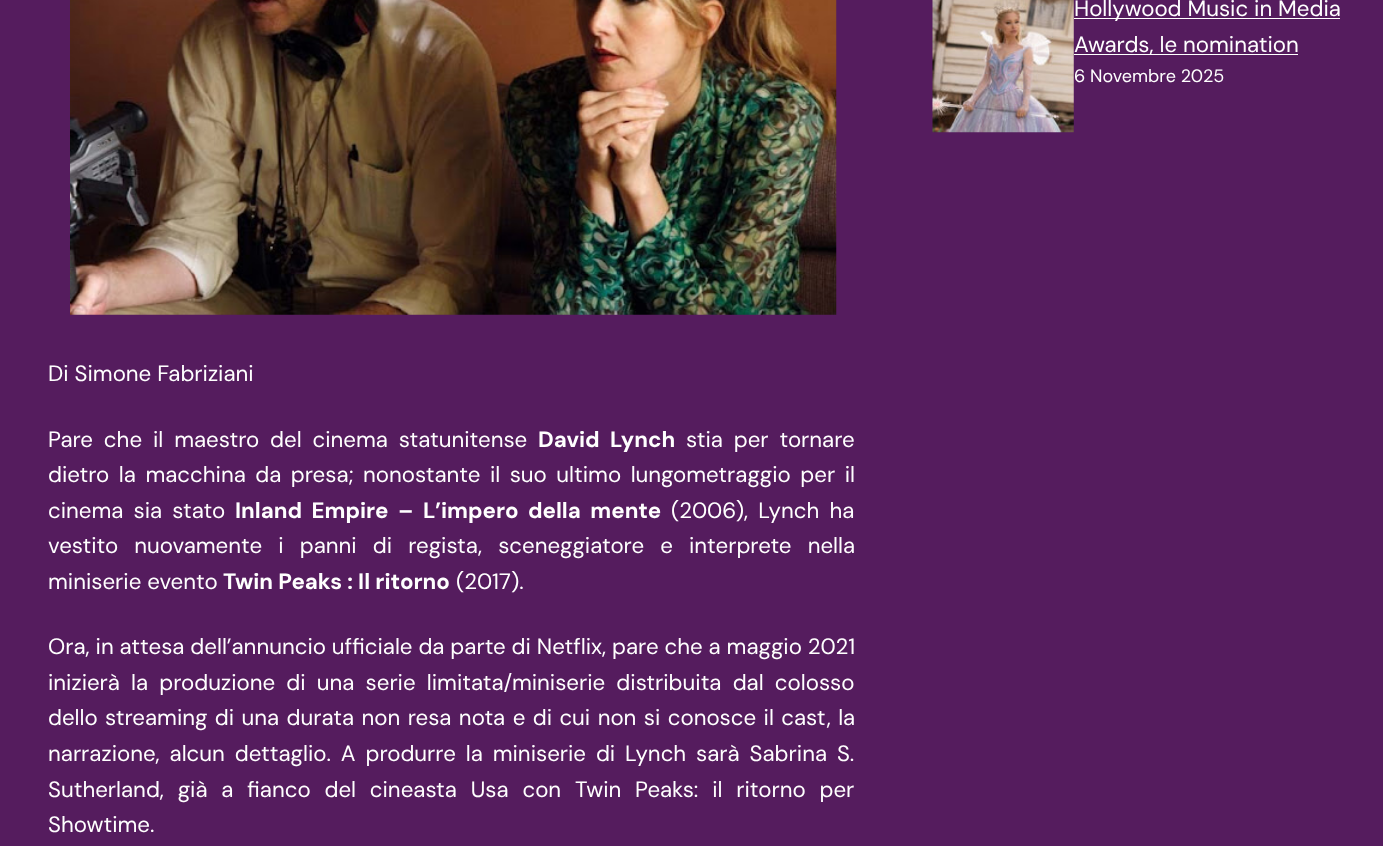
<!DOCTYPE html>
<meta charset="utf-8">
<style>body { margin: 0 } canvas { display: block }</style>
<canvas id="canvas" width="1383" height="846"></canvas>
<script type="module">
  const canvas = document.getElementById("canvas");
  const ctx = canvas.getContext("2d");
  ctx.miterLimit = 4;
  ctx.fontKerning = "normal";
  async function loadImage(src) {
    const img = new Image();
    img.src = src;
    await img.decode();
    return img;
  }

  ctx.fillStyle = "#551c5e";
  ctx.fillRect(0, 0, 1383, 846);
  ctx.drawImage(await loadImage("img1.png"), 932, 0, 142, 133);
  ctx.fillStyle = "#ffffff";
  ctx.fillRect(1074, 18, 266, 1);
  ctx.font = "22.25px DM Sans";
  ctx.fillText("Hollywood Music in Media", 1074, 16);
  ctx.fillRect(1074, 54, 224, 1);
  ctx.fillText("Awards, le nomination", 1074, 52);
  ctx.font = "18px DM Sans";
  ctx.fillText("6 Novembre 2025", 1074, 82);
  ctx.drawImage(await loadImage("img2.png"), 70, 0, 767, 315);
  ctx.font = "22.25px DM Sans";
  ctx.fillText("Di Simone Fabriziani", 48, 381);
  ctx.wordSpacing = "5px";
  ctx.fillText("Pare che il maestro del cinema statunitense", 48, 447);
  ctx.font = "bold 22.25px DM Sans";
  ctx.fillText("David Lynch", 538, 447);
  ctx.font = "22.25px DM Sans";
  ctx.fillText("stia per tornare", 686, 447);
  ctx.wordSpacing = "3.6px";
  ctx.fillText("dietro la macchina da presa; nonostante il suo ultimo lungometraggio per il", 48, 482);
  ctx.wordSpacing = "4.25px";
  ctx.fillText("cinema sia stato", 48, 518);
  ctx.font = "bold 22.25px DM Sans";
  ctx.fillText("Inland Empire – L’impero della mente", 235, 518);
  ctx.font = "22.25px DM Sans";
  ctx.fillText("(2006), Lynch ha", 671, 518);
  ctx.wordSpacing = "10.25px";
  ctx.fillText("vestito nuovamente i panni di regista, sceneggiatore e interprete nella", 48, 553);
  ctx.wordSpacing = "0px";
  ctx.fillText("miniserie evento", 48, 589);
  ctx.font = "bold 22.25px DM Sans";
  ctx.fillText("Twin Peaks : Il ritorno", 223, 589);
  ctx.font = "22.25px DM Sans";
  ctx.fillText("(2017).", 456, 589);
  ctx.fillText("Ora, in attesa dell’annuncio ufficiale da parte di Netflix, pare che a maggio 2021", 48, 654);
  ctx.wordSpacing = "5.25px";
  ctx.fillText("inizierà la produzione di una serie limitata/miniserie distribuita dal colosso", 48, 690);
  ctx.wordSpacing = "1.5px";
  ctx.fillText("dello streaming di una durata non resa nota e di cui non si conosce il cast, la", 48, 725);
  ctx.wordSpacing = "4px";
  ctx.fillText("narrazione, alcun dettaglio. A produrre la miniserie di Lynch sarà Sabrina S.", 48, 761);
  ctx.wordSpacing = "7.9px";
  ctx.fillText("Sutherland, già a fianco del cineasta Usa con Twin Peaks: il ritorno per", 48, 797);
  ctx.wordSpacing = "0px";
  ctx.fillText("Showtime.", 48, 832);
</script>
